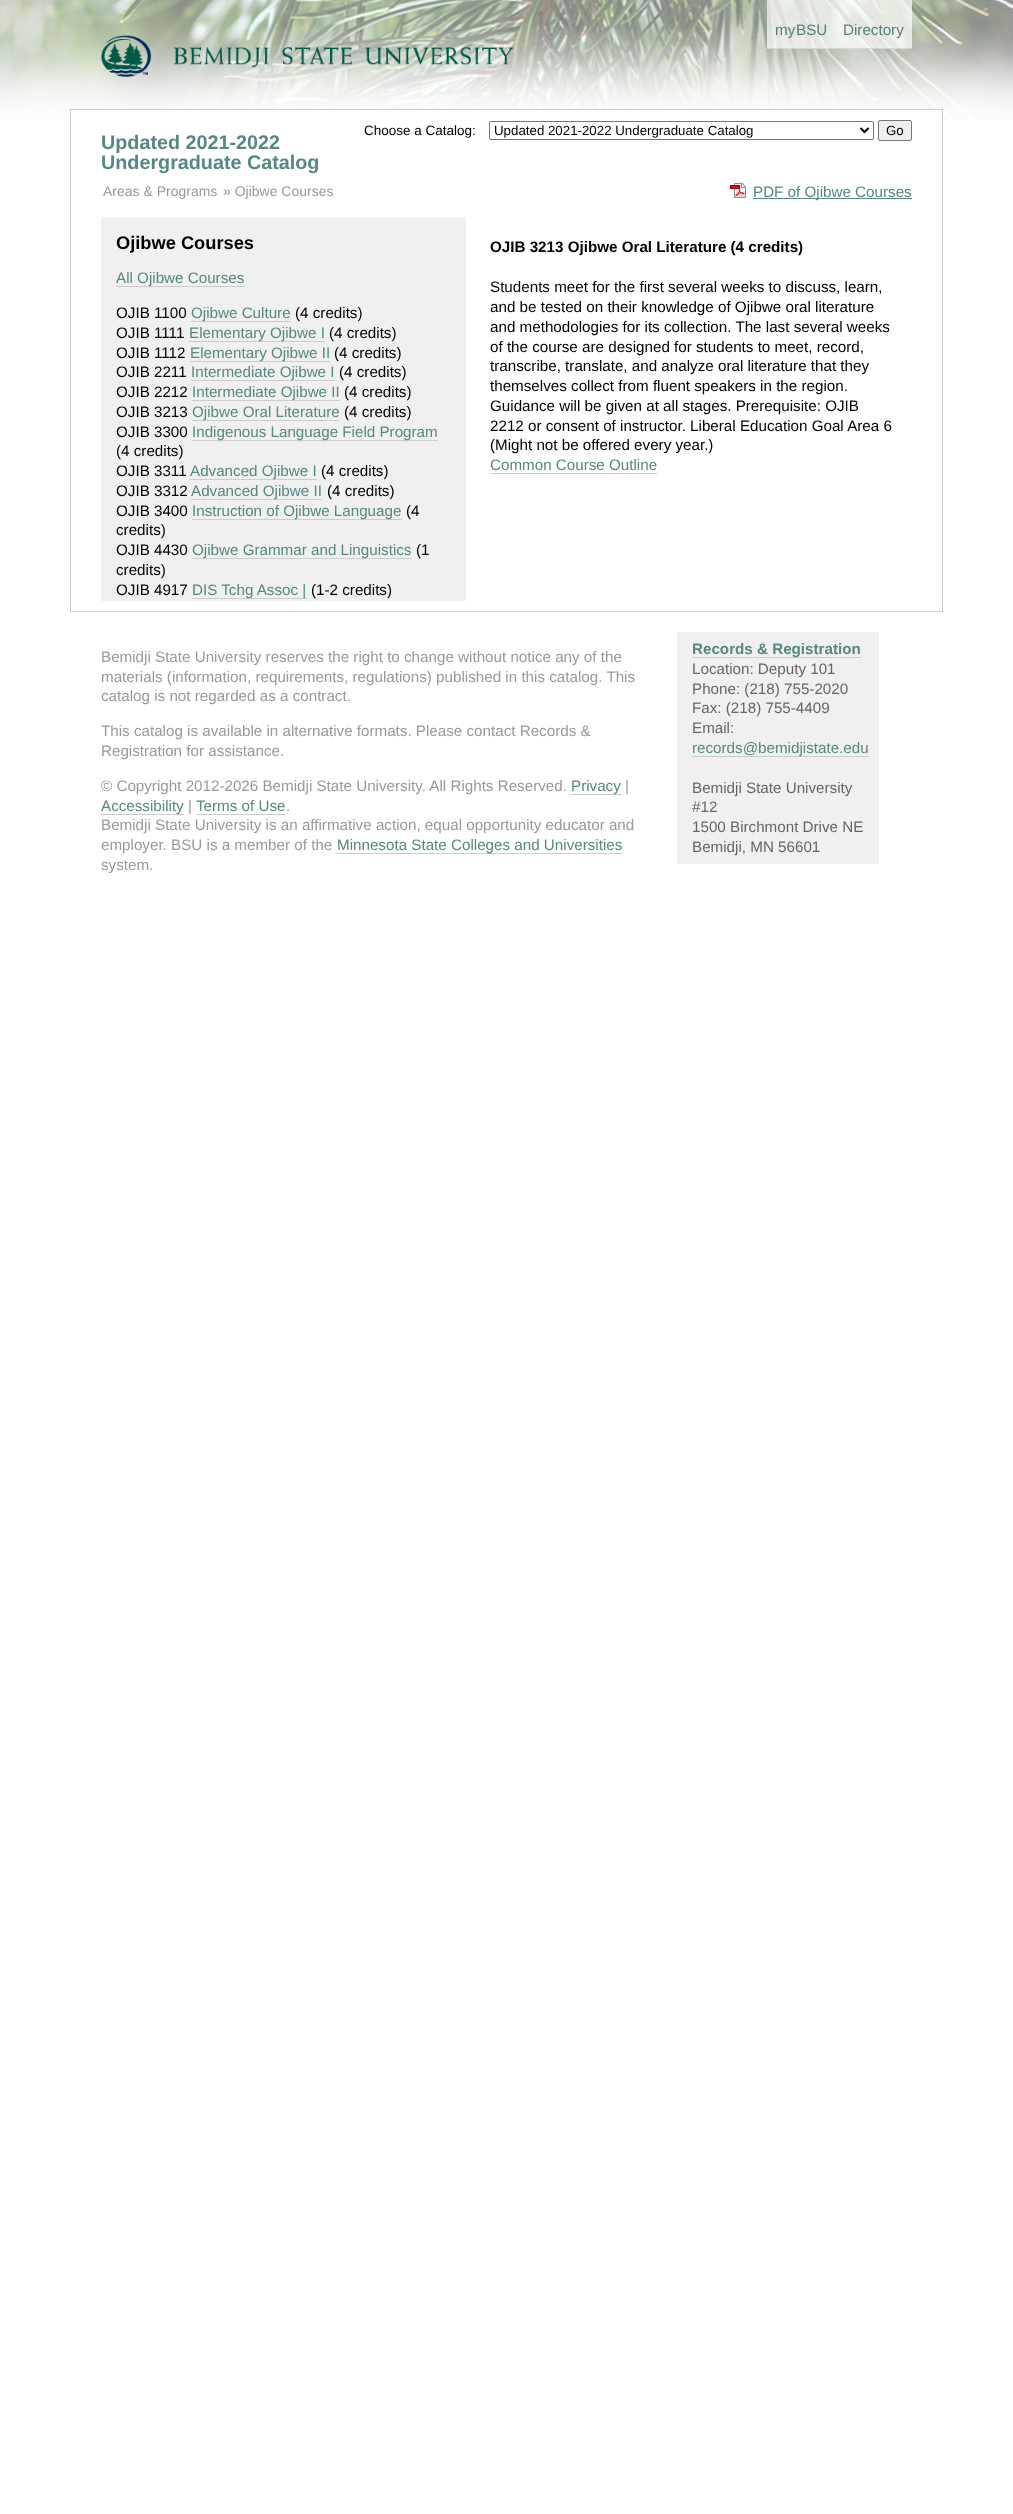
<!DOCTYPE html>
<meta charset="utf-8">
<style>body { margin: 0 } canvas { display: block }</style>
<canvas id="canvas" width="1013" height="2514"></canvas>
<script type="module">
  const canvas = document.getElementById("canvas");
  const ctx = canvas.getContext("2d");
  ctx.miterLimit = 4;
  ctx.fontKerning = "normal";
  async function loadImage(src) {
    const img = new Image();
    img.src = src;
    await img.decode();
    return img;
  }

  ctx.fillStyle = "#ffffff";
  ctx.fillRect(0, 0, 1013, 2514);
  ctx.drawImage(await loadImage("img1.png"), 0, 0, 1013, 120);
  ctx.fillStyle = "rgba(255, 255, 255, 0.7)";
  ctx.fillRect(767, 0, 68, 49);
  ctx.fillStyle = "rgba(204, 204, 204, 0.7)";
  ctx.fillRect(767, 48, 68, 1);
  ctx.font = "15.2px Liberation Sans";
  ctx.fillStyle = "#548275";
  ctx.fillText("my", 775, 35);
  ctx.fillText("BSU", 796, 35);
  ctx.fillStyle = "rgba(255, 255, 255, 0.7)";
  ctx.fillRect(835, 0, 77, 49);
  ctx.fillStyle = "rgba(204, 204, 204, 0.7)";
  ctx.fillRect(835, 48, 77, 1);
  ctx.fillStyle = "#548275";
  ctx.fillText("Directory", 843, 35);
  ctx.drawImage(await loadImage("img2.png"), 101, 35, 413, 42);
  ctx.fillStyle = "#ffffff";
  ctx.fillRect(71, 110, 871, 10);
  ctx.strokeStyle = "#cccccc";
  ctx.strokeRect(70.5, 109.5, 872, 502);
  ctx.font = "13.5px Liberation Sans";
  ctx.fillStyle = "#000000";
  ctx.fillText("Choose a Catalog:", 364, 135);
  ctx.beginPath();
  ctx.roundRect(489.5, 121.5, 384, 18, 1.5);
  ctx.strokeStyle = "#767676";
  ctx.stroke();
  ctx.beginPath();
  ctx.moveTo(860.5, 128);
  ctx.lineTo(864.5, 132);
  ctx.lineTo(868.5, 128);
  ctx.strokeStyle = "#000000";
  ctx.lineWidth = 2;
  ctx.stroke();
  ctx.font = "13.3px Liberation Sans";
  ctx.fillText("Updated 2021-2022 Undergraduate Catalog", 494, 135);
  ctx.fillStyle = "#efefef";
  ctx.beginPath();
  ctx.roundRect(878.5, 120.5, 33, 20, 1.5);
  ctx.fill();
  ctx.strokeStyle = "#767676";
  ctx.lineWidth = 1;
  ctx.stroke();
  ctx.fillStyle = "#000000";
  ctx.fillText("Go", 886, 135);
  ctx.font = "bold 19.75px Liberation Sans";
  ctx.fillStyle = "#558882";
  ctx.fillText("Updated 2021-2022", 101, 149);
  ctx.fillText("Undergraduate Catalog", 101, 169);
  ctx.font = "14px Liberation Sans";
  ctx.fillStyle = "#999999";
  ctx.fillText("Areas & Programs", 103, 196);
  ctx.fillText("» Ojibwe Courses", 223, 196);
  ctx.drawImage(await loadImage("img3.png"), 730, 183, 16, 15);
  ctx.fillStyle = "#558882";
  ctx.fillRect(753, 198, 159, 1);
  ctx.font = "15.2px Liberation Sans";
  ctx.fillText("PDF of Ojibwe Courses", 753, 197);
  ctx.fillStyle = "#f0f0f0";
  ctx.fillRect(101, 217, 365, 384);
  ctx.font = "bold 18.25px Liberation Sans";
  ctx.fillStyle = "#000000";
  ctx.fillText("Ojibwe Courses", 116, 249);
  ctx.fillStyle = "#cccccc";
  ctx.fillRect(116, 286, 129, 1);
  ctx.font = "15.2px Liberation Sans";
  ctx.fillStyle = "#558882";
  ctx.fillText("All Ojibwe Courses", 116, 283);
  ctx.fillStyle = "#000000";
  ctx.fillText("OJIB 1100", 116, 318);
  ctx.fillStyle = "#cccccc";
  ctx.fillRect(191, 321, 100, 1);
  ctx.fillStyle = "#558882";
  ctx.fillText("Ojibwe Culture", 191, 318);
  ctx.fillStyle = "#000000";
  ctx.fillText("(4 credits)", 295, 318);
  ctx.fillText("OJIB 1111", 116, 338);
  ctx.fillStyle = "#cccccc";
  ctx.fillRect(189, 341, 136, 1);
  ctx.fillStyle = "#558882";
  ctx.fillText("Elementary Ojibwe I", 189, 338);
  ctx.fillStyle = "#000000";
  ctx.fillText("(4 credits)", 329, 338);
  ctx.fillText("OJIB 1112", 116, 358);
  ctx.fillStyle = "#cccccc";
  ctx.fillRect(190, 361, 140, 1);
  ctx.fillStyle = "#558882";
  ctx.fillText("Elementary Ojibwe II", 190, 358);
  ctx.fillStyle = "#000000";
  ctx.fillText("(4 credits)", 334, 358);
  ctx.fillText("OJIB 2211", 116, 377);
  ctx.fillStyle = "#cccccc";
  ctx.fillRect(191, 380, 144, 1);
  ctx.fillStyle = "#558882";
  ctx.fillText("Intermediate Ojibwe I", 191, 377);
  ctx.fillStyle = "#000000";
  ctx.fillText("(4 credits)", 339, 377);
  ctx.fillText("OJIB 2212", 116, 397);
  ctx.fillStyle = "#cccccc";
  ctx.fillRect(192, 400, 148, 1);
  ctx.fillStyle = "#558882";
  ctx.fillText("Intermediate Ojibwe II", 192, 397);
  ctx.fillStyle = "#000000";
  ctx.fillText("(4 credits)", 344, 397);
  ctx.fillText("OJIB 3213", 116, 417);
  ctx.fillStyle = "#cccccc";
  ctx.fillRect(192, 420, 148, 1);
  ctx.fillStyle = "#558882";
  ctx.fillText("Ojibwe Oral Literature", 192, 417);
  ctx.fillStyle = "#000000";
  ctx.fillText("(4 credits)", 344, 417);
  ctx.fillText("OJIB 3300", 116, 437);
  ctx.fillStyle = "#cccccc";
  ctx.fillRect(192, 440, 246, 1);
  ctx.fillStyle = "#558882";
  ctx.fillText("Indigenous Language Field Program", 192, 437);
  ctx.fillStyle = "#000000";
  ctx.fillText("(4 credits)", 116, 456);
  ctx.fillText("OJIB 3311", 116, 476);
  ctx.fillStyle = "#cccccc";
  ctx.fillRect(190, 479, 127, 1);
  ctx.fillStyle = "#558882";
  ctx.fillText("Advanced Ojibwe I", 190, 476);
  ctx.fillStyle = "#000000";
  ctx.fillText("(4 credits)", 321, 476);
  ctx.fillText("OJIB 3312", 116, 496);
  ctx.fillStyle = "#cccccc";
  ctx.fillRect(191, 499, 131, 1);
  ctx.fillStyle = "#558882";
  ctx.fillText("Advanced Ojibwe II", 191, 496);
  ctx.fillStyle = "#000000";
  ctx.fillText("(4 credits)", 327, 496);
  ctx.fillText("OJIB 3400", 116, 516);
  ctx.fillStyle = "#cccccc";
  ctx.fillRect(192, 519, 210, 1);
  ctx.fillStyle = "#558882";
  ctx.fillText("Instruction of Ojibwe Language", 192, 516);
  ctx.fillStyle = "#000000";
  ctx.fillText("(4", 406, 516);
  ctx.fillText("credits)", 116, 535);
  ctx.fillText("OJIB 4430", 116, 555);
  ctx.fillStyle = "#cccccc";
  ctx.fillRect(192, 558, 220, 1);
  ctx.fillStyle = "#558882";
  ctx.fillText("Ojibwe Grammar and Linguistics", 192, 555);
  ctx.fillStyle = "#000000";
  ctx.fillText("(1", 416, 555);
  ctx.fillText("credits)", 116, 575);
  ctx.fillText("OJIB 4917", 116, 595);
  ctx.fillStyle = "#cccccc";
  ctx.fillRect(192, 598, 115, 1);
  ctx.fillStyle = "#558882";
  ctx.fillText("DIS Tchg Assoc |", 192, 595);
  ctx.fillStyle = "#000000";
  ctx.fillText("(1-2 credits)", 311, 595);
  ctx.font = "bold 15.2px Liberation Sans";
  ctx.fillText("OJIB 3213 Ojibwe Oral Literature (4 credits)", 490, 252);
  ctx.font = "15.2px Liberation Sans";
  ctx.fillText("Students meet for the first several weeks to discuss, learn,", 490, 292);
  ctx.fillText("and be tested on their knowledge of Ojibwe oral literature", 490, 312);
  ctx.fillText("and methodologies for its collection. The last several weeks", 490, 332);
  ctx.fillText("of the course are designed for students to meet, record,", 490, 352);
  ctx.fillText("transcribe, translate, and analyze oral literature that they", 490, 371);
  ctx.fillText("themselves collect from fluent speakers in the region.", 490, 391);
  ctx.fillText("Guidance will be given at all stages. Prerequisite: OJIB", 490, 411);
  ctx.fillText("2212 or consent of instructor. Liberal Education Goal Area 6", 490, 431);
  ctx.fillText("(Might not be offered every year.)", 490, 450);
  ctx.fillStyle = "#558882";
  ctx.fillText("Common Course Outline", 490, 470);
  ctx.fillStyle = "#cccccc";
  ctx.fillRect(490, 473, 167, 1);
  ctx.fillStyle = "#999999";
  ctx.fillText("Bemidji State University reserves the right to change without notice any of the", 101, 662);
  ctx.fillText("materials (information, requirements, regulations) published in this catalog. This", 101, 682);
  ctx.fillText("catalog is not regarded as a contract.", 101, 701);
  ctx.fillText("This catalog is available in alternative formats. Please contact Records &", 101, 736);
  ctx.fillText("Registration for assistance.", 101, 756);
  ctx.fillText("© Copyright 2012-2026 Bemidji State University. All Rights Reserved.", 101, 791);
  ctx.fillStyle = "#cccccc";
  ctx.fillRect(571, 794, 50, 1);
  ctx.fillStyle = "#558882";
  ctx.fillText("Privacy", 571, 791);
  ctx.fillStyle = "#999999";
  ctx.fillText("|", 625, 791);
  ctx.fillStyle = "#cccccc";
  ctx.fillRect(101, 814, 83, 1);
  ctx.fillStyle = "#558882";
  ctx.fillText("Accessibility", 101, 811);
  ctx.fillStyle = "#999999";
  ctx.fillText("|", 188, 811);
  ctx.fillStyle = "#558882";
  ctx.fillText("Terms of Use", 196, 811);
  ctx.fillStyle = "#cccccc";
  ctx.fillRect(196, 814, 90, 1);
  ctx.fillStyle = "#999999";
  ctx.fillText(".", 286, 811);
  ctx.fillText("Bemidji State University is an affirmative action, equal opportunity educator and", 101, 830);
  ctx.fillText("employer. BSU is a member of the", 101, 850);
  ctx.fillStyle = "#cccccc";
  ctx.fillRect(337, 853, 285, 1);
  ctx.fillStyle = "#558882";
  ctx.fillText("Minnesota State Colleges and Universities", 337, 850);
  ctx.fillStyle = "#999999";
  ctx.fillText("system.", 101, 870);
  ctx.fillStyle = "#f0f0f0";
  ctx.fillRect(677, 632, 202, 232);
  ctx.fillStyle = "#cccccc";
  ctx.fillRect(692, 657, 169, 1);
  ctx.font = "bold 15.2px Liberation Sans";
  ctx.fillStyle = "#558882";
  ctx.fillText("Records & Registration", 692, 654);
  ctx.font = "15.2px Liberation Sans";
  ctx.fillStyle = "#666666";
  ctx.fillText("Location: Deputy 101", 692, 674);
  ctx.fillText("Phone: (218) 755-2020", 692, 694);
  ctx.fillText("Fax: (218) 755-4409", 692, 713);
  ctx.fillText("Email:", 692, 733);
  ctx.fillStyle = "#cccccc";
  ctx.fillRect(692, 756, 177, 1);
  ctx.fillStyle = "#558882";
  ctx.fillText("records@bemidjistate.edu", 692, 753);
  ctx.fillStyle = "#666666";
  ctx.fillText("Bemidji State University", 692, 793);
  ctx.fillText("#12", 692, 812);
  ctx.fillText("1500 Birchmont Drive NE", 692, 832);
  ctx.fillText("Bemidji, MN 56601", 692, 852);
</script>
